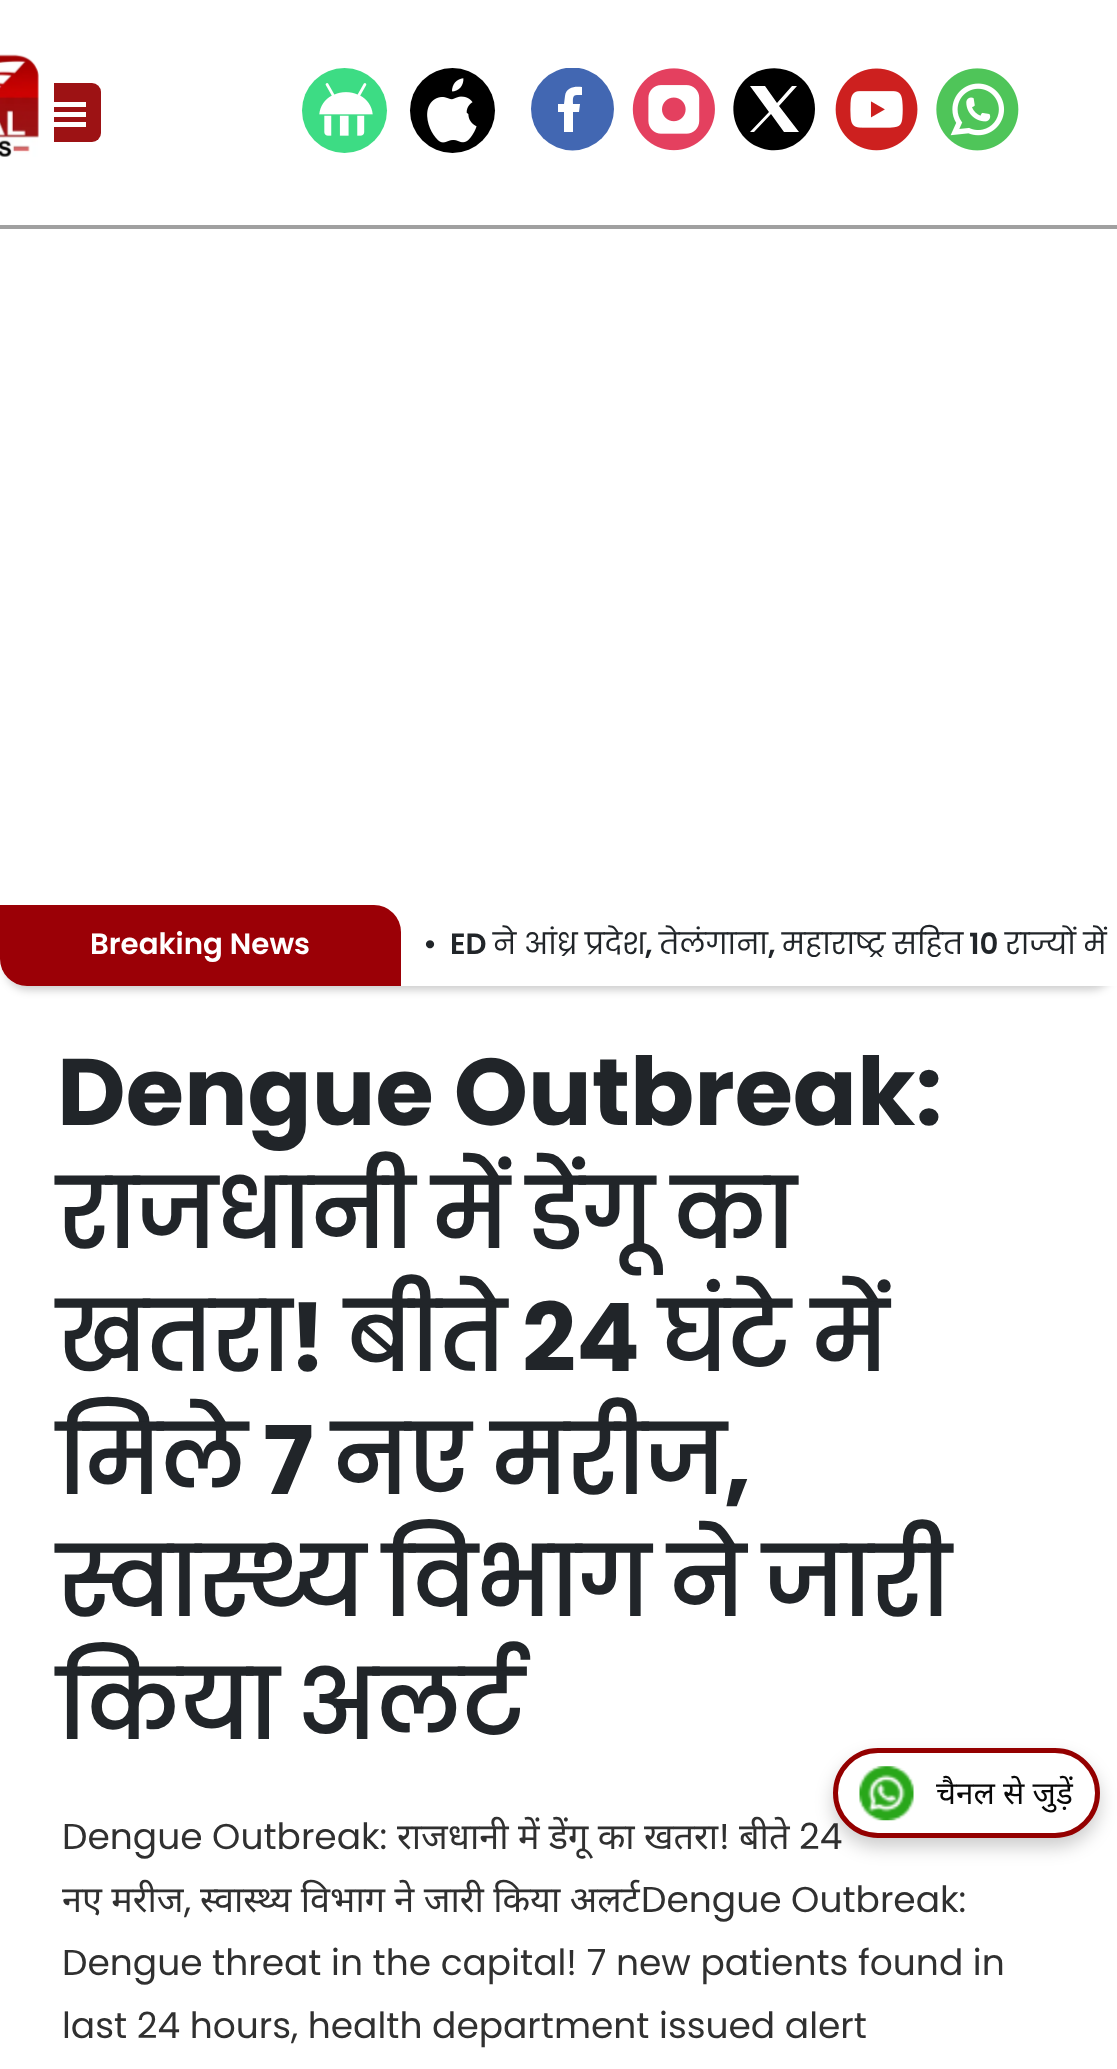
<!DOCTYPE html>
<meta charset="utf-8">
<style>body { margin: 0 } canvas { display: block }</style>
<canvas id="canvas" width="1117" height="2069"></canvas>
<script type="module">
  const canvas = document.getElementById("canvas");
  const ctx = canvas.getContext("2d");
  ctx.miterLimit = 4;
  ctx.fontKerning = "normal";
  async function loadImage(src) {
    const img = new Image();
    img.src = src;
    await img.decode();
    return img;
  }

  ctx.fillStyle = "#ffffff";
  ctx.fillRect(0, 0, 1117, 2069);
  ctx.fillStyle = "#9d1214";
  ctx.beginPath();
  ctx.roundRect(36, 83, 65, 59, 9);
  ctx.fill();
  ctx.fillStyle = "#ffffff";
  ctx.fillRect(52, 102, 34, 5);
  ctx.fillRect(52, 112, 34, 5);
  ctx.fillRect(52, 122, 34, 5);
  ctx.fillRect(36, 83, 18, 59);
  ctx.drawImage(await loadImage("img1.png"), 0, 54, 39, 103);
  ctx.fillStyle = "#a0a0a0";
  ctx.fillRect(0, 225, 1117, 4);
  ctx.fillStyle = "#3ddc84";
  ctx.beginPath();
  ctx.arc(344.5, 110.5, 42.5, 0, Math.PI * 2);
  ctx.fill();
  ctx.drawImage(await loadImage("img2.png"), 319, 83, 54, 53);
  ctx.fillStyle = "#000000";
  ctx.beginPath();
  ctx.arc(452.5, 110.5, 42.5, 0, Math.PI * 2);
  ctx.fill();
  ctx.drawImage(await loadImage("img3.png"), 427, 78, 50, 65);
  ctx.save();
  ctx.beginPath();
  ctx.rect(522, 68, 101, 83);
  ctx.clip();
  ctx.fillStyle = "#4267b2";
  ctx.beginPath();
  ctx.arc(572.5, 109, 41.5, 0, Math.PI * 2);
  ctx.fill();
  ctx.restore();
  ctx.fillStyle = "#ffffff";
  ctx.beginPath();
  ctx.moveTo(577, 95);
  ctx.lineTo(582, 95);
  ctx.lineTo(582, 87);
  ctx.bezierCurveTo(575, 86, 566, 87, 565, 96);
  ctx.lineTo(564, 104);
  ctx.lineTo(558, 104);
  ctx.lineTo(558, 112);
  ctx.lineTo(564, 112);
  ctx.lineTo(564, 132);
  ctx.lineTo(573, 132);
  ctx.lineTo(573, 112);
  ctx.lineTo(579, 112);
  ctx.lineTo(580, 104);
  ctx.lineTo(573, 104);
  ctx.bezierCurveTo(573, 100, 572, 95, 577, 95);
  ctx.closePath();
  ctx.fill();
  ctx.drawImage(await loadImage("img4.png"), 632, 68, 83, 83);
  ctx.fillStyle = "#000000";
  ctx.beginPath();
  ctx.moveTo(815, 109);
  ctx.bezierCurveTo(815, 134, 793, 153, 769, 150);
  ctx.bezierCurveTo(723, 143, 721, 78, 766, 69);
  ctx.bezierCurveTo(777, 67, 788, 69, 797, 75);
  ctx.bezierCurveTo(809, 83, 815, 96, 815, 109);
  ctx.closePath();
  ctx.fill();
  ctx.fillStyle = "#ffffff";
  ctx.beginPath();
  ctx.moveTo(750, 86);
  ctx.lineTo(769, 112);
  ctx.lineTo(750, 132);
  ctx.lineTo(754, 132);
  ctx.lineTo(771, 114);
  ctx.lineTo(784, 132);
  ctx.lineTo(799, 132);
  ctx.lineTo(779, 106);
  ctx.lineTo(797, 86);
  ctx.lineTo(792, 86);
  ctx.lineTo(777, 103);
  ctx.lineTo(765, 86);
  ctx.closePath();
  ctx.fill();
  ctx.drawImage(await loadImage("img5.png"), 835, 68, 83, 83);
  ctx.drawImage(await loadImage("img6.png"), 936, 68, 83, 83);
  ctx.fillStyle = "rgba(0, 0, 0, 0.2)";
  ctx.filter = "blur(4.5px)";
  ctx.beginPath();
  ctx.roundRect(5, 918, 1109, 72, 23);
  ctx.fill();
  ctx.filter = "none";
  ctx.fillStyle = "#ffffff";
  ctx.beginPath();
  ctx.moveTo(0, 905);
  ctx.lineTo(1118, 905);
  ctx.lineTo(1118, 986);
  ctx.lineTo(27, 986);
  ctx.bezierCurveTo(12, 986, 0, 974, 0, 959);
  ctx.closePath();
  ctx.fill();
  ctx.fillStyle = "#9b0006";
  ctx.beginPath();
  ctx.roundRect(0, 905, 401, 81, [0, 27, 0, 27]);
  ctx.fill();
  ctx.font = "600 29.25px Poppins";
  ctx.fillStyle = "#ffffff";
  ctx.fillText("Breaking News", 90, 954);
  ctx.fillStyle = "#212529";
  ctx.fillText("•", 423, 954);
  ctx.fillText("ED", 450, 954);
  ctx.font = "29.25px 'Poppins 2'";
  ctx.fillText("ने आंध्र प्रदेश", 493, 954);
  ctx.font = "600 29.25px Poppins";
  ctx.fillText(",", 645, 954);
  ctx.font = "29.25px 'Poppins 2'";
  ctx.fillText("तेलंगाना", 659, 954);
  ctx.fillText("महाराष्ट्र सहित", 782, 954);
  ctx.font = "600 29.25px Poppins";
  ctx.fillText("10", 969, 954);
  ctx.font = "29.25px 'Poppins 2'";
  ctx.fillText("राज्यों में", 1005, 954);
  ctx.font = "600 29.25px Poppins";
  ctx.fillText(",", 768, 954);
  ctx.font = "bold 94.5px Poppins";
  ctx.fillText("Dengue Outbreak:", 57, 1125);
  ctx.wordSpacing = "-5px";
  ctx.font = "bold 94.5px 'Poppins 2'";
  ctx.fillText("राजधानी में डेंगू का", 57, 1248);
  ctx.wordSpacing = "0px";
  ctx.fillText("खतरा", 57, 1371);
  ctx.font = "bold 94.5px Poppins";
  ctx.fillText("!", 289, 1371);
  ctx.font = "bold 94.5px 'Poppins 2'";
  ctx.fillText("बीते", 345, 1371);
  ctx.font = "bold 94.5px Poppins";
  ctx.fillText("24", 522, 1371);
  ctx.wordSpacing = "-1px";
  ctx.font = "bold 94.5px 'Poppins 2'";
  ctx.fillText("घंटे में", 659, 1371);
  ctx.wordSpacing = "0px";
  ctx.fillText("मिले", 57, 1494);
  ctx.font = "bold 94.5px Poppins";
  ctx.fillText("7", 263, 1494);
  ctx.wordSpacing = "-2px";
  ctx.font = "bold 94.5px 'Poppins 2'";
  ctx.fillText("नए मरीज", 332, 1494);
  ctx.wordSpacing = "0px";
  ctx.font = "bold 94.5px Poppins";
  ctx.fillText(",", 724, 1494);
  ctx.wordSpacing = "-5px";
  ctx.font = "bold 94.5px 'Poppins 2'";
  ctx.fillText("स्वास्थ्य विभाग ने जारी", 57, 1616);
  ctx.fillText("किया अलर्ट", 57, 1739);
  ctx.wordSpacing = "0px";
  ctx.font = "36px Poppins";
  ctx.fillStyle = "#303030";
  ctx.fillText("Dengue Outbreak:", 62, 1849);
  ctx.font = "36px Noto Sans";
  ctx.fillText("राजधानी में डेंगू का खतरा", 397, 1849);
  ctx.font = "36px Poppins";
  ctx.fillText("!", 719, 1849);
  ctx.font = "36px Noto Sans";
  ctx.fillText("बीते", 739, 1849);
  ctx.font = "36px Poppins";
  ctx.fillText("24", 799, 1849);
  ctx.font = "36px Noto Sans";
  ctx.fillText("नए मरीज", 62, 1912);
  ctx.font = "36px Poppins";
  ctx.fillText(",", 184, 1912);
  ctx.font = "36px Noto Sans";
  ctx.fillText("स्वास्थ्य विभाग ने जारी किया अलर्ट", 200, 1912);
  ctx.font = "36px Poppins";
  ctx.fillText("Dengue Outbreak:", 641, 1912);
  ctx.fillText("Dengue threat in the capital! 7 new patients found in", 62, 1975);
  ctx.fillText("last 24 hours, health department issued alert", 62, 2038);
  ctx.fillStyle = "rgba(0, 0, 0, 0.2)";
  ctx.filter = "blur(9px)";
  ctx.beginPath();
  ctx.roundRect(833, 1757, 267, 90, 45);
  ctx.fill();
  ctx.filter = "none";
  ctx.fillStyle = "#ffffff";
  ctx.beginPath();
  ctx.roundRect(835.5, 1750.5, 262, 85, 42.5);
  ctx.fill();
  ctx.strokeStyle = "#940000";
  ctx.lineWidth = 5;
  ctx.stroke();
  ctx.drawImage(await loadImage("img7.png"), 859, 1766, 55, 55);
  ctx.font = "31.5px Noto Sans";
  ctx.fillStyle = "#080808";
  ctx.fillText("चैनल से जुड़ें", 936, 1804);
</script>
